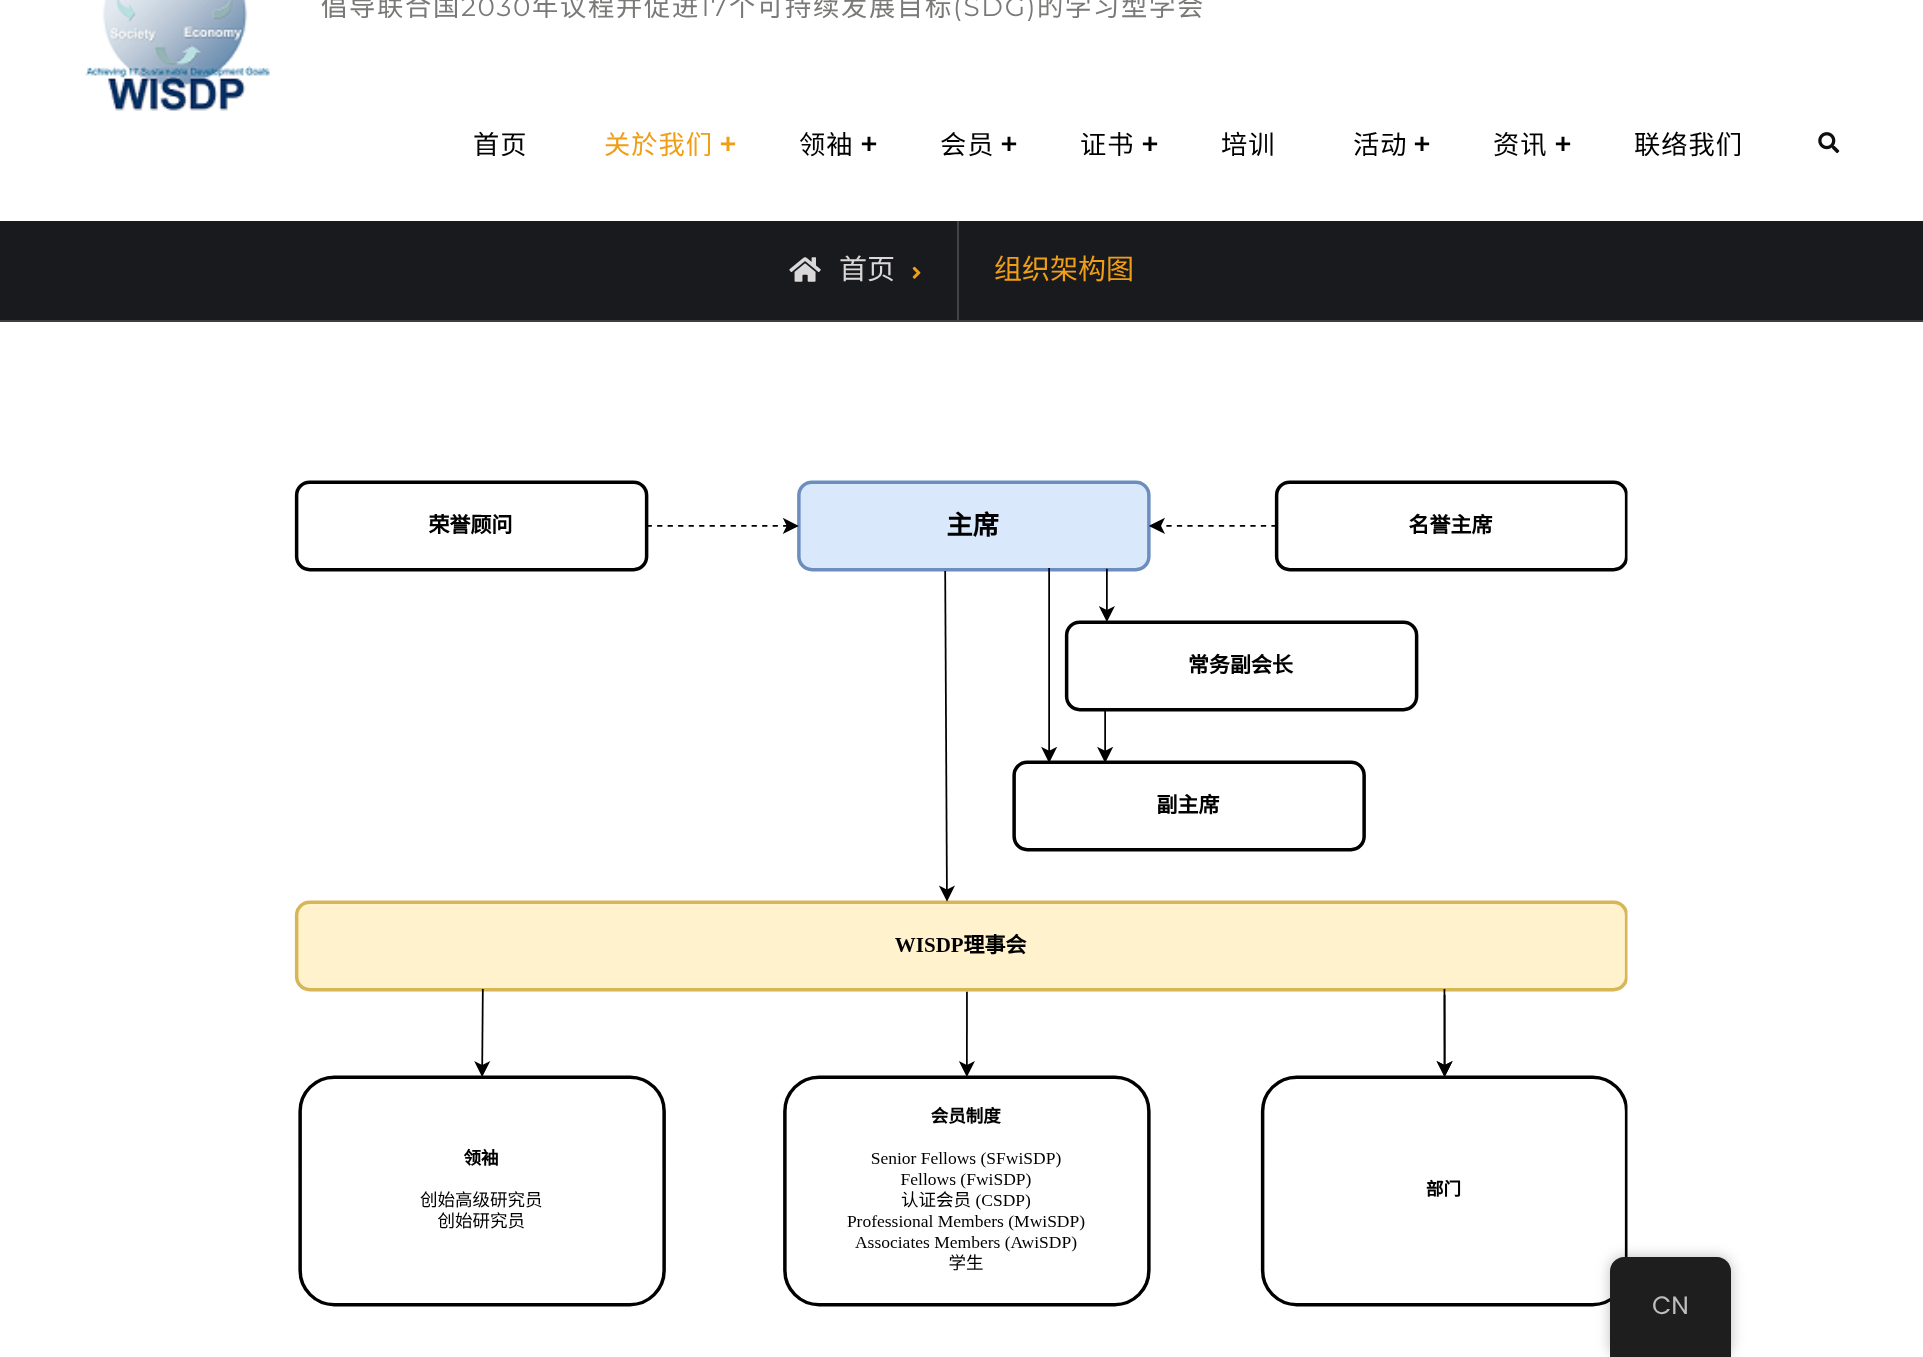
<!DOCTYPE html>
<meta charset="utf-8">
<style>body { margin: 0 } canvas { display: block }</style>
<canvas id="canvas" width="1923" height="1357"></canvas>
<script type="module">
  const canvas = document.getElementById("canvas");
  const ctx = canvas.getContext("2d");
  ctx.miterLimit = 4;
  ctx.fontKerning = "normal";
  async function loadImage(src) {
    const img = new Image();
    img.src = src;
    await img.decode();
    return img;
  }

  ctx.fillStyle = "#ffffff";
  ctx.fillRect(0, 0, 1923, 1357);
  ctx.drawImage(await loadImage("img1.png"), 85, 0, 185, 111);
  ctx.letterSpacing = "1.75px";
  ctx.font = "26.25px Noto Sans CJK SC";
  ctx.fillStyle = "#797978";
  ctx.fillText("倡导联合国", 321, 16);
  ctx.font = "100 26.25px Montserrat";
  ctx.fillText("2030", 461, 16);
  ctx.font = "26.25px Noto Sans CJK SC";
  ctx.fillText("年议程并促进", 532, 16);
  ctx.font = "100 26.25px Montserrat";
  ctx.fillText("17", 700, 16);
  ctx.font = "26.25px Noto Sans CJK SC";
  ctx.fillText("个可持续发展目标", 729, 16);
  ctx.font = "100 26.25px Montserrat";
  ctx.fillText("(SDG)", 953, 16);
  ctx.font = "26.25px Noto Sans CJK SC";
  ctx.fillText("的学习型学会", 1037, 16);
  ctx.letterSpacing = "1px";
  ctx.fillStyle = "#000000";
  ctx.fillText("首页", 473, 154);
  ctx.fillStyle = "#ef9e16";
  ctx.fillText("关於我们", 604, 154);
  ctx.font = "500 28px Poppins";
  ctx.fillText("+", 718, 154);
  ctx.font = "26.25px Noto Sans CJK SC";
  ctx.fillStyle = "#000000";
  ctx.fillText("领袖", 799, 154);
  ctx.font = "500 28px Poppins";
  ctx.fillText("+", 859, 154);
  ctx.font = "26.25px Noto Sans CJK SC";
  ctx.fillText("会员", 940, 154);
  ctx.font = "500 28px Poppins";
  ctx.fillText("+", 999, 154);
  ctx.font = "26.25px Noto Sans CJK SC";
  ctx.fillText("证书", 1080, 154);
  ctx.font = "500 28px Poppins";
  ctx.fillText("+", 1140, 154);
  ctx.font = "26.25px Noto Sans CJK SC";
  ctx.fillText("培训", 1221, 154);
  ctx.fillText("活动", 1353, 154);
  ctx.font = "500 28px Poppins";
  ctx.fillText("+", 1412, 154);
  ctx.font = "26.25px Noto Sans CJK SC";
  ctx.fillText("资讯", 1493, 154);
  ctx.font = "500 28px Poppins";
  ctx.fillText("+", 1553, 154);
  ctx.font = "26.25px Noto Sans CJK SC";
  ctx.fillText("联络我们", 1634, 154);
  ctx.drawImage(await loadImage("img2.png"), 1818, 132, 22, 22);
  ctx.fillStyle = "#191a1e";
  ctx.fillRect(0, 221, 1923, 99);
  ctx.fillStyle = "#3e3f42";
  ctx.fillRect(0, 320, 1923, 2);
  ctx.fillStyle = "#424346";
  ctx.fillRect(957, 221, 2, 99);
  ctx.drawImage(await loadImage("img3.png"), 789, 257, 32, 25);
  ctx.letterSpacing = "0px";
  ctx.font = "28px Noto Sans CJK SC";
  ctx.fillStyle = "#dad8d8";
  ctx.fillText("首页", 839, 279);
  ctx.drawImage(await loadImage("img4.png"), 912, 266, 9, 13);
  ctx.fillStyle = "#ef9e16";
  ctx.fillText("组织架构图", 994, 279);
  ctx.drawImage(await loadImage("img5.png"), 294, 480, 1334, 827);
  ctx.fillStyle = "rgba(0, 0, 0, 0.25)";
  ctx.filter = "blur(7px)";
  ctx.beginPath();
  ctx.roundRect(1610, 1257, 121, 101, 14);
  ctx.fill();
  ctx.filter = "none";
  ctx.fillStyle = "#1e1e1e";
  ctx.beginPath();
  ctx.moveTo(1624, 1257);
  ctx.lineTo(1717, 1257);
  ctx.bezierCurveTo(1724.5, 1257, 1731, 1263.5, 1731, 1271);
  ctx.lineTo(1731, 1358);
  ctx.lineTo(1610, 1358);
  ctx.lineTo(1610, 1271);
  ctx.bezierCurveTo(1610, 1263.5, 1616.5, 1257, 1624, 1257);
  ctx.closePath();
  ctx.fill();
  ctx.font = "25px Poppins";
  ctx.fillStyle = "#bdbdbd";
  ctx.fillText("CN", 1652, 1314);
</script>
